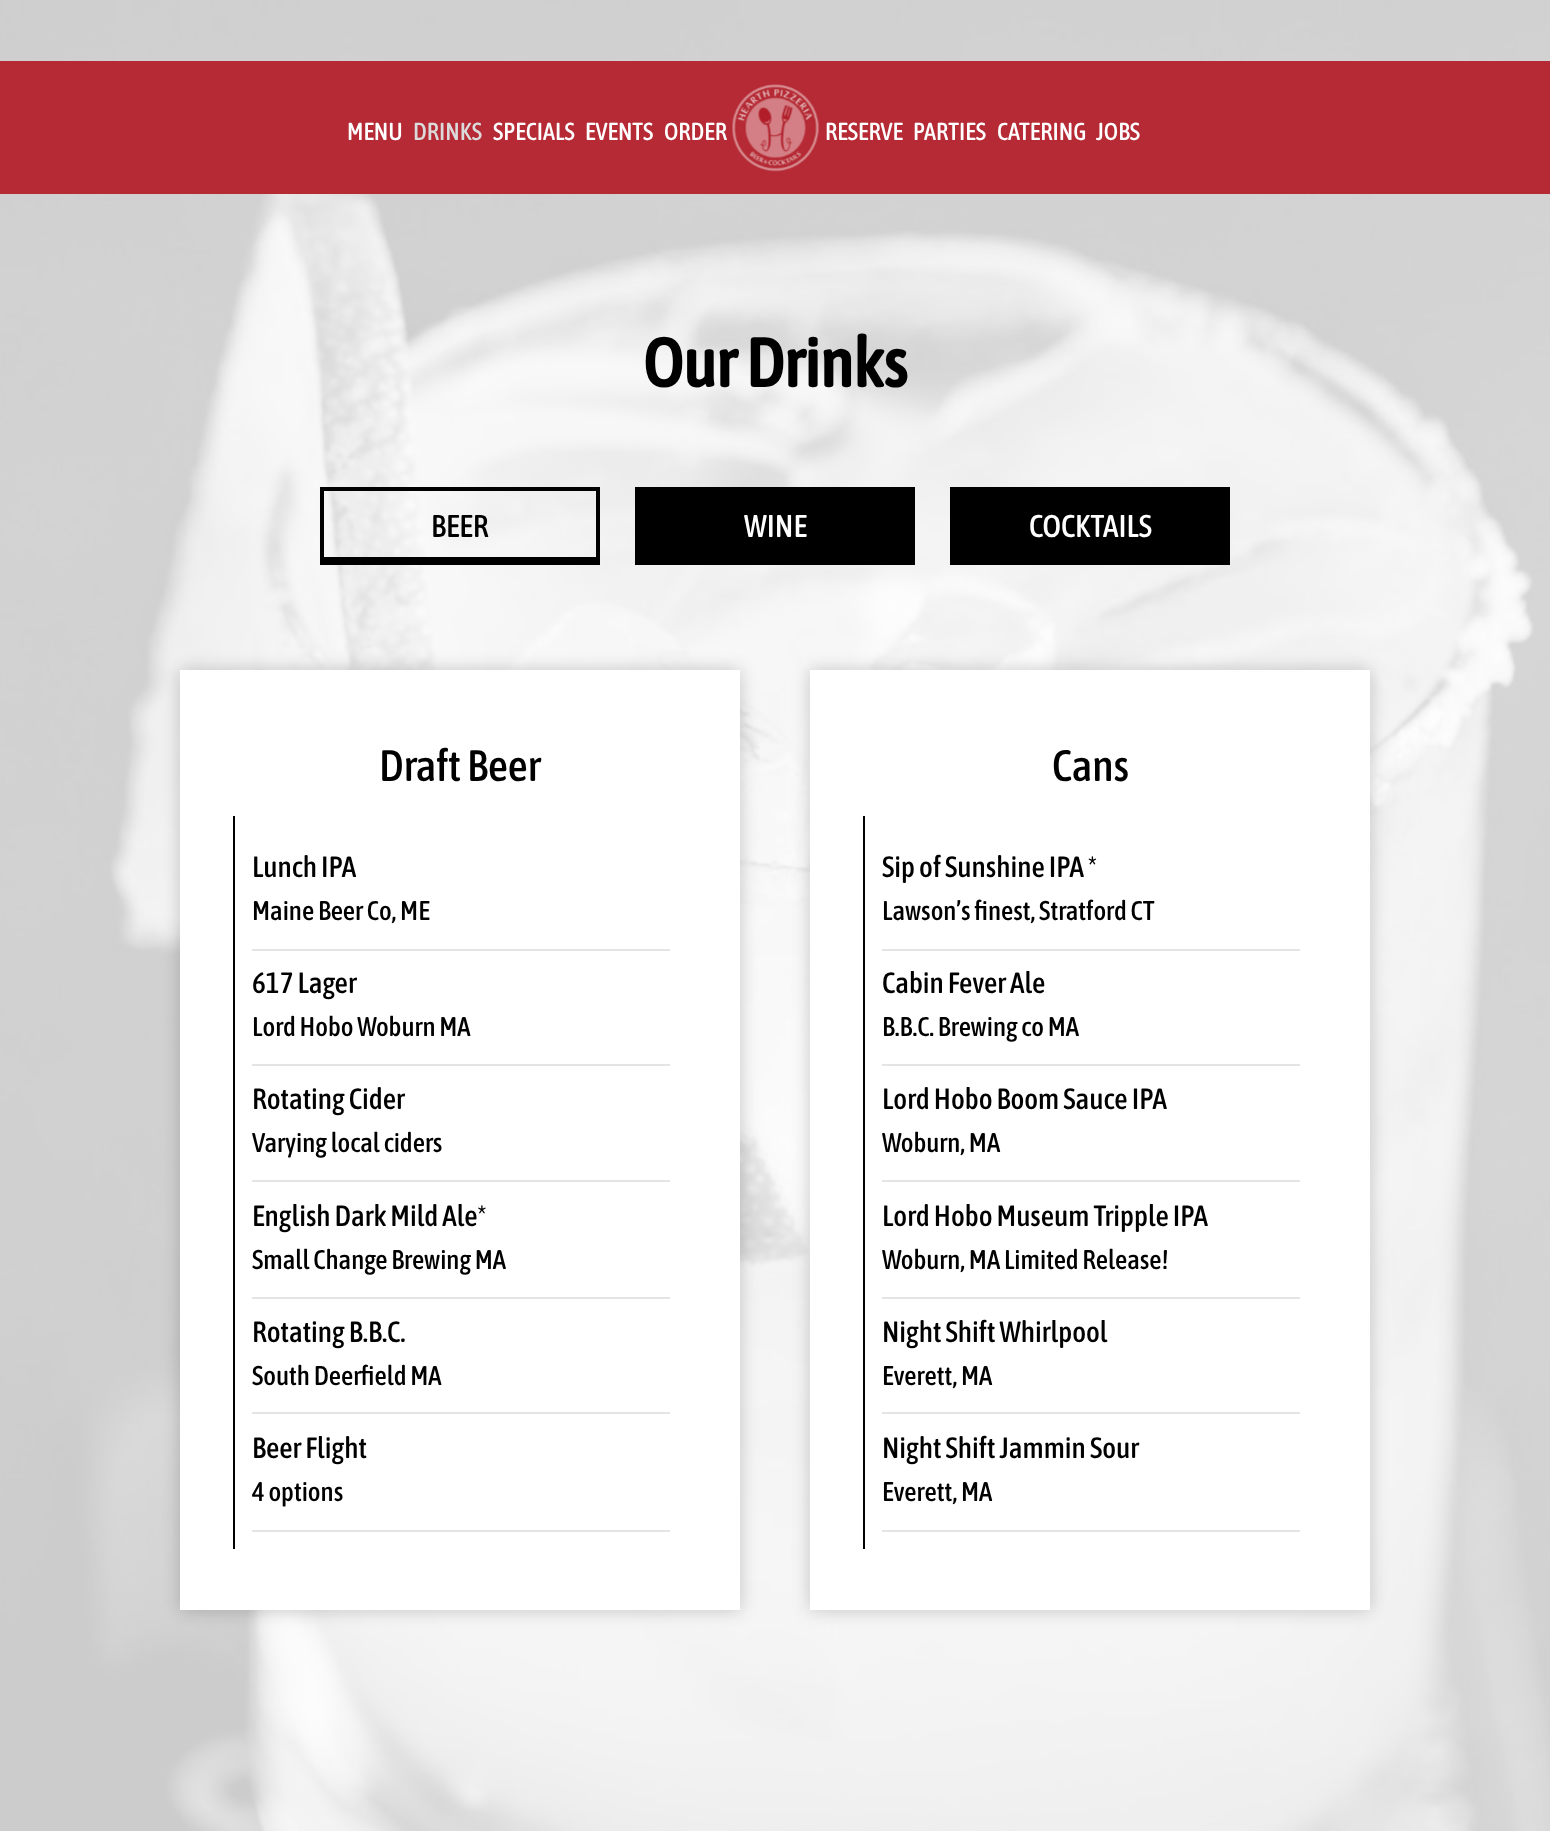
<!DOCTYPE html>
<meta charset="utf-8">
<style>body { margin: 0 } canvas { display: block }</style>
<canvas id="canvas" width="1550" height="1831"></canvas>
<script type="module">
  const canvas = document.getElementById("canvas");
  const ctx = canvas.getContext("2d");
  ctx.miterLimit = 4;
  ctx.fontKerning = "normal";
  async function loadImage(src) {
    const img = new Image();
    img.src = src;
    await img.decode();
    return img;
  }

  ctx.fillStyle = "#ffffff";
  ctx.fillRect(0, 0, 1550, 1831);
  ctx.drawImage(await loadImage("img1.png"), 0, 0, 1550, 1831);
  ctx.fillStyle = "#b52a34";
  ctx.fillRect(0, 61, 1550, 133);
  ctx.font = "500 24.5px Asap Condensed";
  ctx.fillStyle = "#ffffff";
  ctx.fillText("MENU", 347, 140);
  ctx.fillStyle = "#dbdbdb";
  ctx.fillText("DRINKS", 413, 140);
  ctx.fillStyle = "#ffffff";
  ctx.fillText("SPECIALS", 493, 140);
  ctx.fillText("EVENTS", 585, 140);
  ctx.fillText("ORDER", 664, 140);
  ctx.drawImage(await loadImage("img2.png"), 732, 84, 87, 88);
  ctx.fillText("RESERVE", 825, 140);
  ctx.fillText("PARTIES", 913, 140);
  ctx.fillText("CATERING", 997, 140);
  ctx.fillText("JOBS", 1096, 140);
  ctx.font = "bold 68.5px Asap Condensed";
  ctx.fillStyle = "#000000";
  ctx.fillText("Our Drinks", 643, 387);
  ctx.strokeStyle = "#000000";
  ctx.lineWidth = 4;
  ctx.strokeRect(322, 489, 276, 74);
  ctx.font = "500 31.5px Asap Condensed";
  ctx.fillText("BEER", 431, 537);
  ctx.fillRect(324, 557, 273, 4);
  ctx.fillRect(635, 487, 280, 78);
  ctx.fillStyle = "#ffffff";
  ctx.fillText("WINE", 744, 537);
  ctx.fillStyle = "#000000";
  ctx.fillRect(950, 487, 280, 78);
  ctx.fillStyle = "#ffffff";
  ctx.fillText("COCKTAILS", 1029, 537);
  ctx.fillStyle = "rgba(0, 0, 0, 0.2)";
  ctx.filter = "blur(9px)";
  ctx.beginPath();
  ctx.rect(180, 670, 560, 940);
  ctx.fill();
  ctx.filter = "none";
  ctx.fillStyle = "#ffffff";
  ctx.fillRect(180, 670, 560, 940);
  ctx.font = "500 44px Asap Condensed";
  ctx.fillStyle = "#000000";
  ctx.fillText("Draft Beer", 379, 781);
  ctx.fillRect(233, 816, 2, 733);
  ctx.fillStyle = "#e4e4e4";
  ctx.fillRect(252, 949, 418, 2);
  ctx.font = "500 29.4px Asap Condensed";
  ctx.fillStyle = "#000000";
  ctx.fillText("Lunch IPA", 252, 877);
  ctx.font = "500 27px Asap Condensed";
  ctx.fillText("Maine Beer Co, ME", 252, 920);
  ctx.fillStyle = "#e4e4e4";
  ctx.fillRect(252, 1064, 418, 2);
  ctx.font = "500 29.4px Asap Condensed";
  ctx.fillStyle = "#000000";
  ctx.fillText("617 Lager", 252, 993);
  ctx.font = "500 27px Asap Condensed";
  ctx.fillText("Lord Hobo Woburn MA", 252, 1036);
  ctx.fillStyle = "#e4e4e4";
  ctx.fillRect(252, 1180, 418, 2);
  ctx.font = "500 29.4px Asap Condensed";
  ctx.fillStyle = "#000000";
  ctx.fillText("Rotating Cider", 252, 1109);
  ctx.font = "500 27px Asap Condensed";
  ctx.fillText("Varying local ciders", 252, 1152);
  ctx.fillStyle = "#e4e4e4";
  ctx.fillRect(252, 1297, 418, 2);
  ctx.font = "500 29.4px Asap Condensed";
  ctx.fillStyle = "#000000";
  ctx.fillText("English Dark Mild Ale*", 252, 1226);
  ctx.font = "500 27px Asap Condensed";
  ctx.fillText("Small Change Brewing MA", 252, 1269);
  ctx.fillStyle = "#e4e4e4";
  ctx.fillRect(252, 1412, 418, 2);
  ctx.font = "500 29.4px Asap Condensed";
  ctx.fillStyle = "#000000";
  ctx.fillText("Rotating B.B.C.", 252, 1342);
  ctx.font = "500 27px Asap Condensed";
  ctx.fillText("South Deerfield MA", 252, 1385);
  ctx.fillStyle = "#e4e4e4";
  ctx.fillRect(252, 1530, 418, 2);
  ctx.font = "500 29.4px Asap Condensed";
  ctx.fillStyle = "#000000";
  ctx.fillText("Beer Flight", 252, 1458);
  ctx.font = "500 27px Asap Condensed";
  ctx.fillText("4 options", 252, 1501);
  ctx.fillStyle = "rgba(0, 0, 0, 0.2)";
  ctx.filter = "blur(9px)";
  ctx.beginPath();
  ctx.rect(810, 670, 560, 940);
  ctx.fill();
  ctx.filter = "none";
  ctx.fillStyle = "#ffffff";
  ctx.fillRect(810, 670, 560, 940);
  ctx.font = "500 44px Asap Condensed";
  ctx.fillStyle = "#000000";
  ctx.fillText("Cans", 1052, 781);
  ctx.fillRect(863, 816, 2, 733);
  ctx.fillStyle = "#e4e4e4";
  ctx.fillRect(882, 949, 418, 2);
  ctx.font = "500 29.4px Asap Condensed";
  ctx.fillStyle = "#000000";
  ctx.fillText("Sip of Sunshine IPA *", 882, 877);
  ctx.font = "500 27px Asap Condensed";
  ctx.fillText("Lawson’s finest, Stratford CT", 882, 920);
  ctx.fillStyle = "#e4e4e4";
  ctx.fillRect(882, 1064, 418, 2);
  ctx.font = "500 29.4px Asap Condensed";
  ctx.fillStyle = "#000000";
  ctx.fillText("Cabin Fever Ale", 882, 993);
  ctx.font = "500 27px Asap Condensed";
  ctx.fillText("B.B.C. Brewing co MA", 882, 1036);
  ctx.fillStyle = "#e4e4e4";
  ctx.fillRect(882, 1180, 418, 2);
  ctx.font = "500 29.4px Asap Condensed";
  ctx.fillStyle = "#000000";
  ctx.fillText("Lord Hobo Boom Sauce IPA", 882, 1109);
  ctx.font = "500 27px Asap Condensed";
  ctx.fillText("Woburn, MA", 882, 1152);
  ctx.fillStyle = "#e4e4e4";
  ctx.fillRect(882, 1297, 418, 2);
  ctx.font = "500 29.4px Asap Condensed";
  ctx.fillStyle = "#000000";
  ctx.fillText("Lord Hobo Museum Tripple IPA", 882, 1226);
  ctx.font = "500 27px Asap Condensed";
  ctx.fillText("Woburn, MA Limited Release!", 882, 1269);
  ctx.fillStyle = "#e4e4e4";
  ctx.fillRect(882, 1412, 418, 2);
  ctx.font = "500 29.4px Asap Condensed";
  ctx.fillStyle = "#000000";
  ctx.fillText("Night Shift Whirlpool", 882, 1342);
  ctx.font = "500 27px Asap Condensed";
  ctx.fillText("Everett, MA", 882, 1385);
  ctx.fillStyle = "#e4e4e4";
  ctx.fillRect(882, 1530, 418, 2);
  ctx.font = "500 29.4px Asap Condensed";
  ctx.fillStyle = "#000000";
  ctx.fillText("Night Shift Jammin Sour", 882, 1458);
  ctx.font = "500 27px Asap Condensed";
  ctx.fillText("Everett, MA", 882, 1501);
</script>
